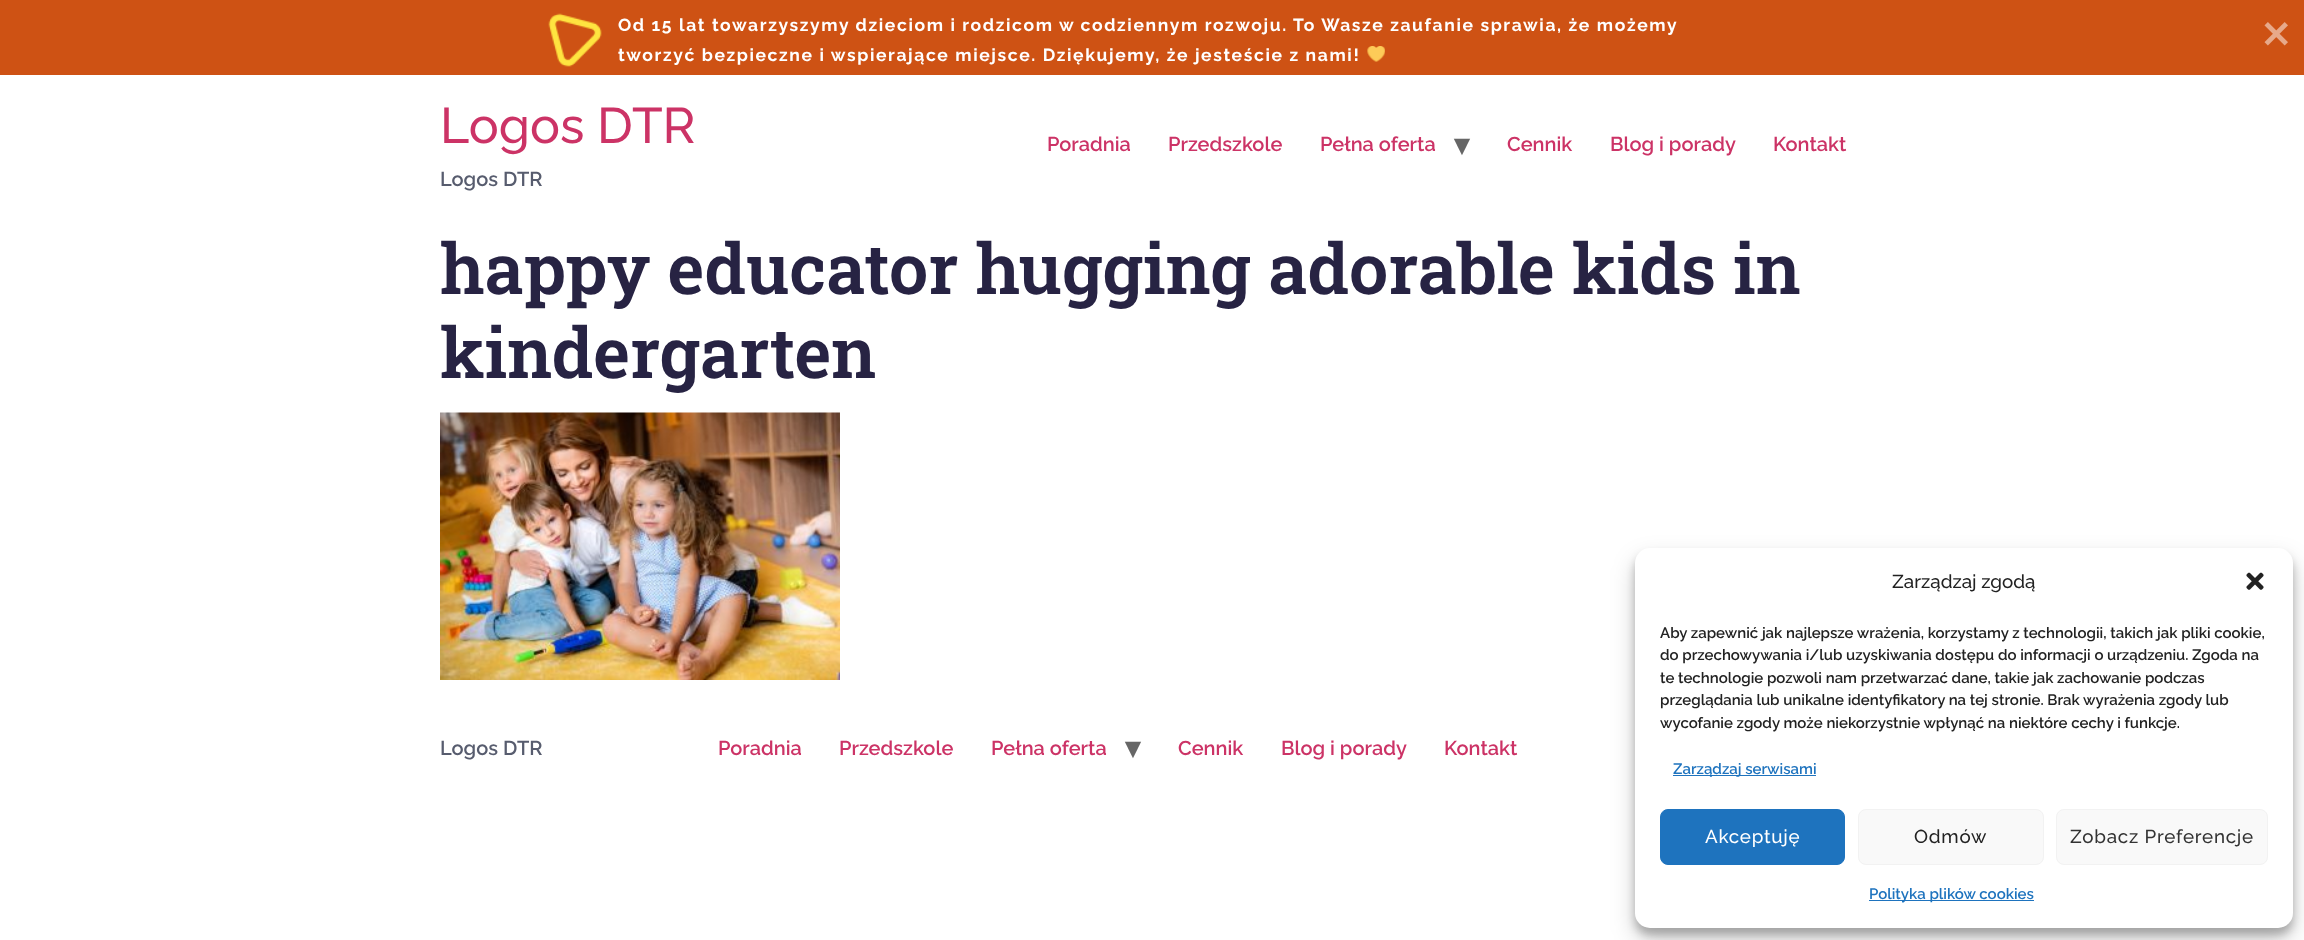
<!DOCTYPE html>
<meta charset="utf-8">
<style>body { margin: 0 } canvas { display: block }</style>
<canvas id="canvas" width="2304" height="940"></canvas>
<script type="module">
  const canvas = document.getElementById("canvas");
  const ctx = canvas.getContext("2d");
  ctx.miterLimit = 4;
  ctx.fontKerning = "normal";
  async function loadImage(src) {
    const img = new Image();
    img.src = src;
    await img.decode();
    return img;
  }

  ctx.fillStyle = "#ffffff";
  ctx.fillRect(0, 0, 2304, 940);
  ctx.fillStyle = "#ce5214";
  ctx.fillRect(0, 0, 2304, 75);
  ctx.drawImage(await loadImage("img1.png"), 548, 13, 54, 54);
  ctx.letterSpacing = "1.62px";
  ctx.font = "bold 17.5px Raleway";
  ctx.fillStyle = "#ffffff";
  ctx.fillText("Od 15 lat towarzyszymy dzieciom i rodzicom w codziennym rozwoju. To Wasze zaufanie sprawia, że możemy", 618, 31);
  ctx.fillText("tworzyć bezpieczne i wspierające miejsce. Dziękujemy, że jesteście z nami!", 618, 61);
  ctx.drawImage(await loadImage("img2.png"), 1367, 46, 18, 16);
  ctx.drawImage(await loadImage("img3.png"), 2264, 22, 24, 24);
  ctx.letterSpacing = "0px";
  ctx.font = "500 50px Raleway";
  ctx.fillStyle = "#cc3366";
  ctx.fillText("Logos DTR", 440, 143);
  ctx.font = "600 20px Raleway";
  ctx.fillStyle = "#575c6e";
  ctx.fillText("Logos DTR", 440, 186);
  ctx.fillStyle = "#cc3366";
  ctx.fillText("Poradnia", 1047, 151);
  ctx.fillText("Przedszkole", 1168, 151);
  ctx.fillText("Pełna oferta", 1320, 151);
  ctx.font = "bold 30px DejaVu Sans";
  ctx.fillStyle = "#666666";
  ctx.fillText("▾", 1454, 155);
  ctx.font = "600 20px Raleway";
  ctx.fillStyle = "#cc3366";
  ctx.fillText("Cennik", 1507, 151);
  ctx.fillText("Blog i porady", 1610, 151);
  ctx.fillText("Kontakt", 1773, 151);
  ctx.font = "600 70px Roboto Slab";
  ctx.fillStyle = "#272343";
  ctx.fillText("happy educator hugging adorable kids in", 440, 294);
  ctx.fillText("kindergarten", 440, 378);
  ctx.drawImage(await loadImage("img4.png"), 440, 412, 400, 268);
  ctx.font = "600 20px Raleway";
  ctx.fillStyle = "#575c6e";
  ctx.fillText("Logos DTR", 440, 755);
  ctx.fillStyle = "#cc3366";
  ctx.fillText("Poradnia", 718, 755);
  ctx.fillText("Przedszkole", 839, 755);
  ctx.fillText("Pełna oferta", 991, 755);
  ctx.font = "bold 30px DejaVu Sans";
  ctx.fillStyle = "#666666";
  ctx.fillText("▾", 1125, 758);
  ctx.font = "600 20px Raleway";
  ctx.fillStyle = "#cc3366";
  ctx.fillText("Cennik", 1178, 755);
  ctx.fillText("Blog i porady", 1281, 755);
  ctx.fillText("Kontakt", 1444, 755);
  ctx.fillStyle = "rgba(0, 0, 0, 0.23)";
  ctx.filter = "blur(4px)";
  ctx.beginPath();
  ctx.roundRect(1635, 555, 658, 380, 15);
  ctx.fill();
  ctx.filter = "none";
  ctx.fillStyle = "rgba(0, 0, 0, 0.19)";
  ctx.filter = "blur(12.5px)";
  ctx.beginPath();
  ctx.roundRect(1635, 560, 658, 380, 15);
  ctx.fill();
  ctx.filter = "none";
  ctx.fillStyle = "#ffffff";
  ctx.beginPath();
  ctx.roundRect(1635, 548, 658, 380, 15);
  ctx.fill();
  ctx.font = "500 18.75px Raleway";
  ctx.fillStyle = "#222222";
  ctx.fillText("Zarządzaj zgodą", 1892, 588);
  ctx.drawImage(await loadImage("img5.png"), 2246, 572, 18, 18);
  ctx.font = "600 15px Raleway";
  ctx.fillText("Aby zapewnić jak najlepsze wrażenia, korzystamy z technologii, takich jak pliki cookie,", 1660, 638);
  ctx.fillText("do przechowywania i/lub uzyskiwania dostępu do informacji o urządzeniu. Zgoda na", 1660, 660);
  ctx.fillText("te technologie pozwoli nam przetwarzać dane, takie jak zachowanie podczas", 1660, 683);
  ctx.fillText("przeglądania lub unikalne identyfikatory na tej stronie. Brak wyrażenia zgody lub", 1660, 705);
  ctx.fillText("wycofanie zgody może niekorzystnie wpłynąć na niektóre cechy i funkcje.", 1660, 728);
  ctx.fillStyle = "#1e73be";
  ctx.fillRect(1673, 775, 143, 1);
  ctx.fillText("Zarządzaj serwisami", 1673, 774);
  ctx.beginPath();
  ctx.roundRect(1660.5, 809.5, 184, 55, 7.5);
  ctx.fill();
  ctx.strokeStyle = "#1e73be";
  ctx.stroke();
  ctx.letterSpacing = "0.75px";
  ctx.font = "500 18.75px Raleway";
  ctx.fillStyle = "#ffffff";
  ctx.fillText("Akceptuję", 1705, 843);
  ctx.fillStyle = "#f9f9f9";
  ctx.beginPath();
  ctx.roundRect(1858.5, 809.5, 185, 55, 7.5);
  ctx.fill();
  ctx.strokeStyle = "#f2f2f2";
  ctx.stroke();
  ctx.fillStyle = "#222222";
  ctx.fillText("Odmów", 1914, 843);
  ctx.fillStyle = "#f9f9f9";
  ctx.beginPath();
  ctx.roundRect(2056.5, 809.5, 211, 55, 7.5);
  ctx.fill();
  ctx.stroke();
  ctx.fillStyle = "#333333";
  ctx.fillText("Zobacz Preferencje", 2070, 843);
  ctx.fillStyle = "#1e73be";
  ctx.fillRect(1869, 900, 165, 1);
  ctx.letterSpacing = "0px";
  ctx.font = "600 15px Raleway";
  ctx.fillText("Polityka plików cookies", 1869, 899);
</script>
